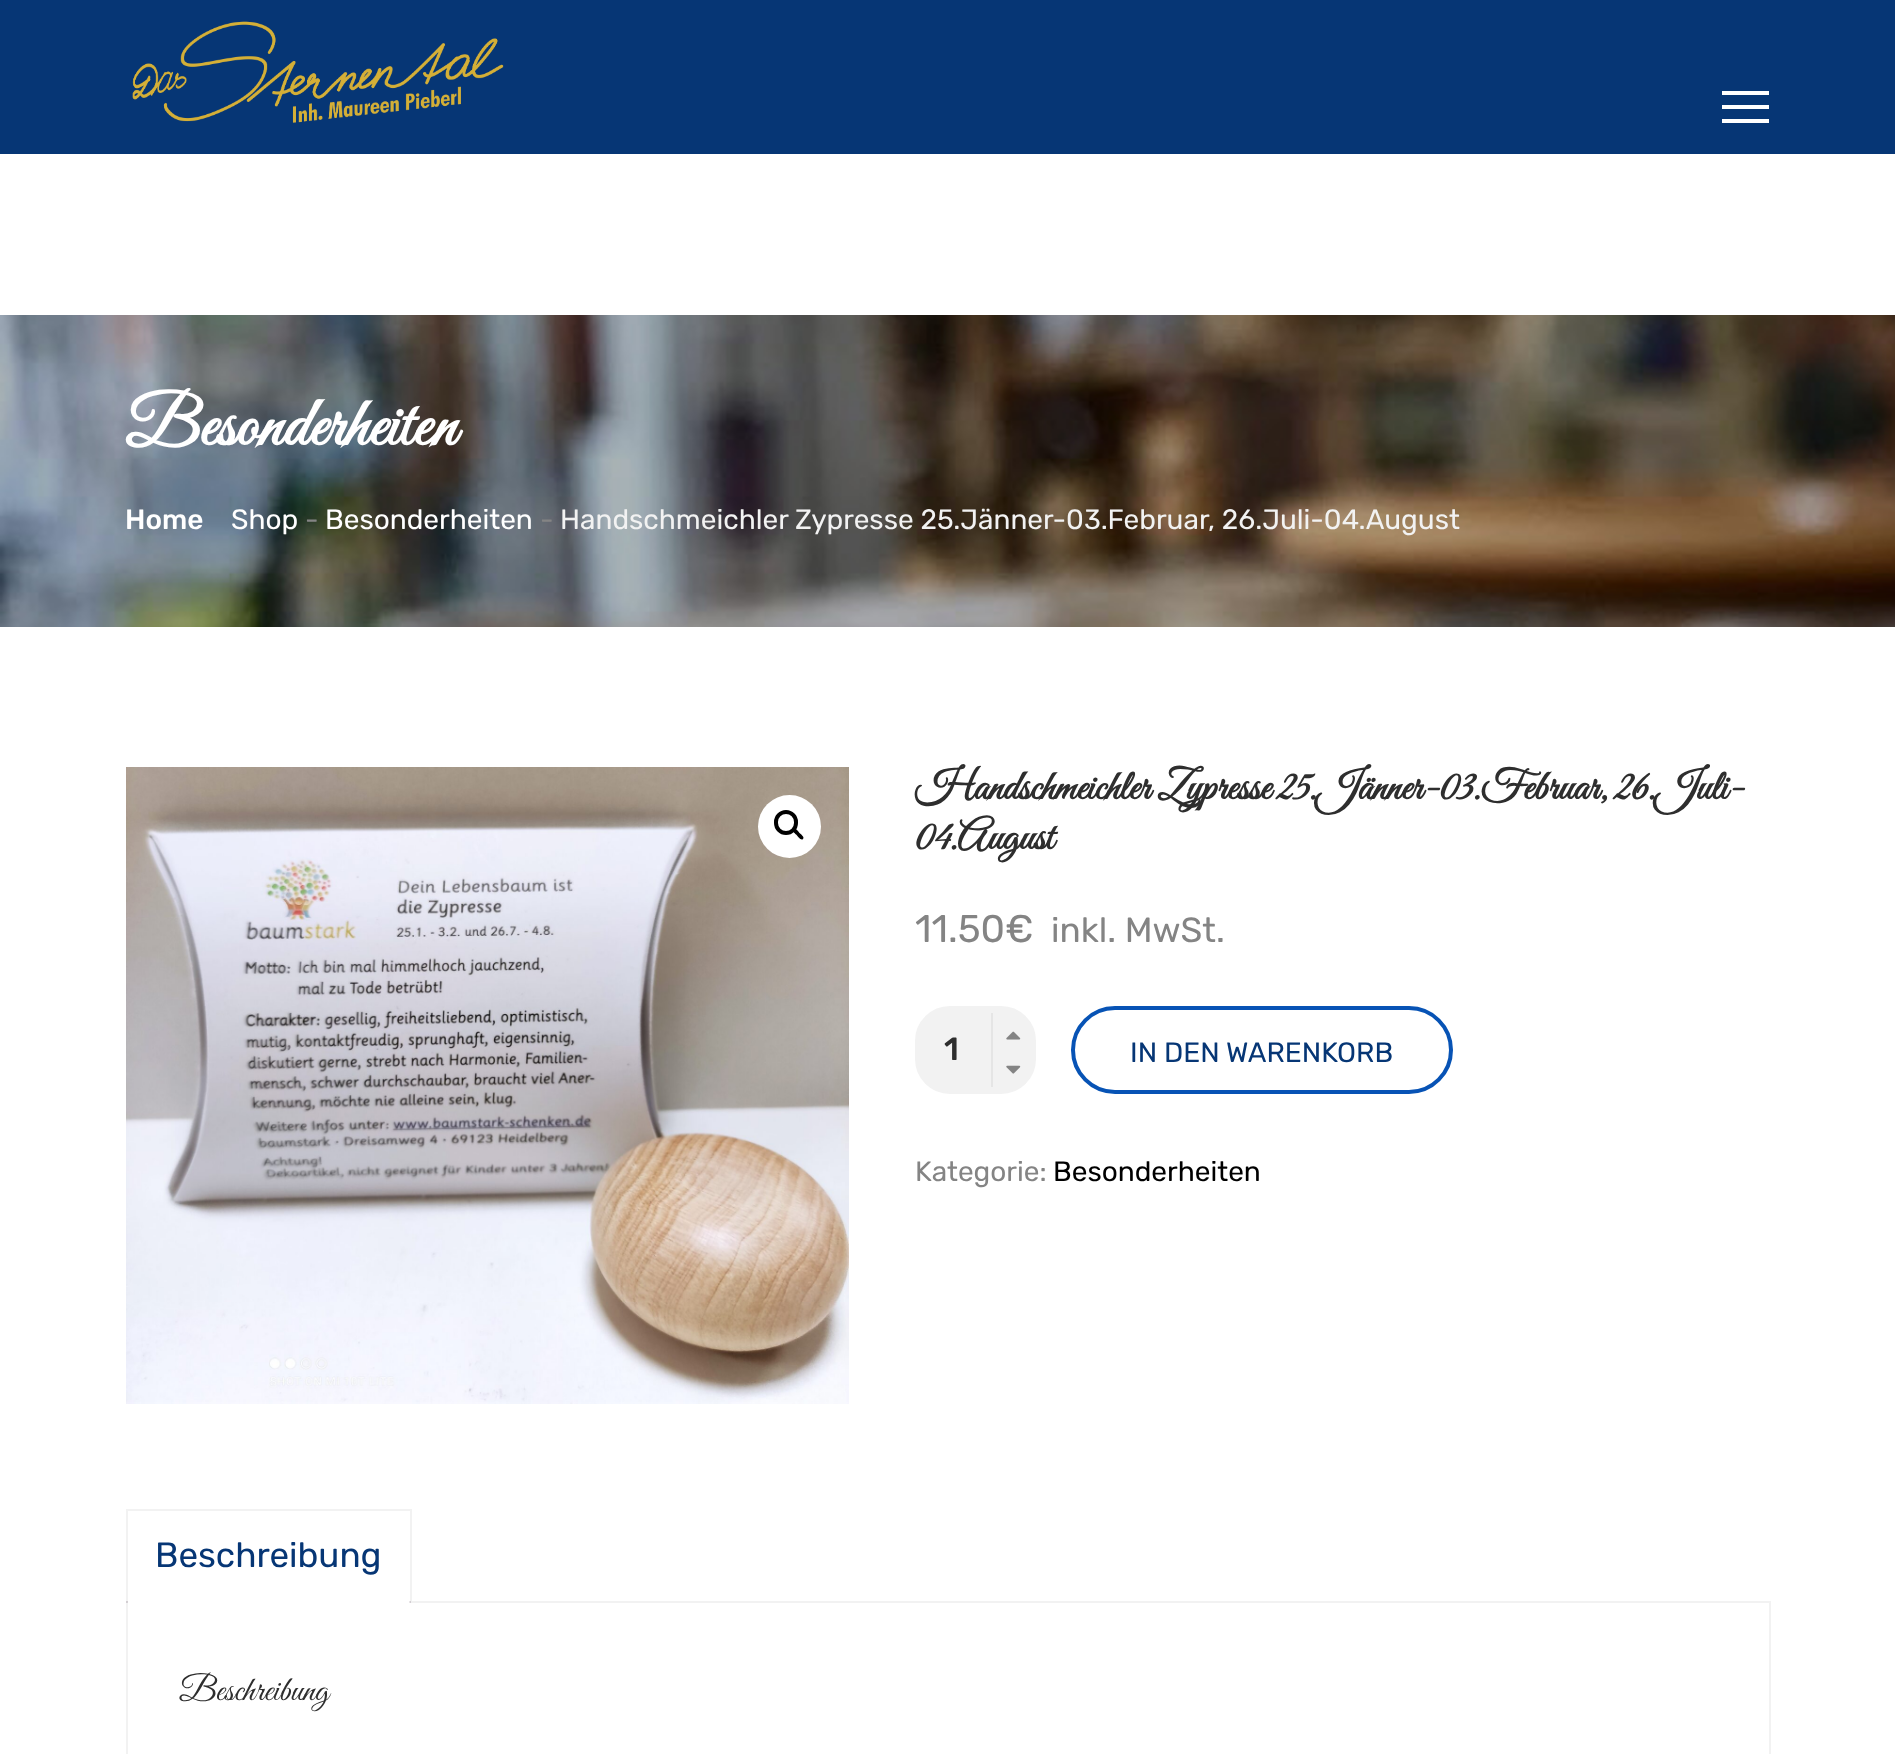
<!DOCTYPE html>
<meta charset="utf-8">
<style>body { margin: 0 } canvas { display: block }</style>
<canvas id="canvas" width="1895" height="1754"></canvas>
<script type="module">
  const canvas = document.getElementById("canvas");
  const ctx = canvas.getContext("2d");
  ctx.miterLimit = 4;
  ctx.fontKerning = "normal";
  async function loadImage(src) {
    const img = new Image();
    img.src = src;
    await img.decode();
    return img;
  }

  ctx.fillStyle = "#ffffff";
  ctx.fillRect(0, 0, 1895, 1754);
  ctx.fillStyle = "#063675";
  ctx.fillRect(0, 0, 1895, 154);
  ctx.drawImage(await loadImage("img1.png"), 132, 21, 372, 102);
  ctx.fillStyle = "#ffffff";
  ctx.fillRect(1722, 105, 47, 4);
  ctx.fillRect(1722, 91, 47, 4);
  ctx.fillRect(1722, 119, 47, 4);
  ctx.drawImage(await loadImage("img2.png"), 0, 315, 1895, 312);
  ctx.font = "bold 70px Great Vibes";
  ctx.fillText("Besonderheiten", 125, 445);
  ctx.font = "500 28px Rubik";
  ctx.fillText("Home", 125, 529);
  ctx.font = "28px Rubik";
  ctx.fillText("Shop", 231, 529);
  ctx.fillStyle = "#848484";
  ctx.fillText("-", 305, 529);
  ctx.fillStyle = "#ffffff";
  ctx.fillText("Besonderheiten", 325, 529);
  ctx.fillStyle = "#848484";
  ctx.fillText("-", 540, 529);
  ctx.fillStyle = "#f2f2f2";
  ctx.fillText("Handschmeichler Zypresse 25.Jänner-03.Februar, 26.Juli-04.August", 560, 529);
  ctx.drawImage(await loadImage("img3.png"), 126, 767, 723, 637);
  ctx.fillStyle = "#ffffff";
  ctx.beginPath();
  ctx.arc(789.5, 826.5, 31.5, 0, Math.PI * 2);
  ctx.fill();
  ctx.beginPath();
  ctx.roundRect(776, 812, 20, 21, 10);
  ctx.strokeStyle = "#000000";
  ctx.lineWidth = 4;
  ctx.stroke();
  ctx.fillStyle = "#000000";
  ctx.beginPath();
  ctx.moveTo(793, 829);
  ctx.bezierCurveTo(795, 827, 798.5, 831.5, 799.5, 833);
  ctx.bezierCurveTo(800.5, 834, 805, 837, 803, 839);
  ctx.bezierCurveTo(801, 841, 798, 836.5, 797, 835.5);
  ctx.bezierCurveTo(796, 834, 791, 831, 793, 829);
  ctx.closePath();
  ctx.fill();
  ctx.font = "bold 42px Great Vibes";
  ctx.fillStyle = "#2e2e2e";
  ctx.fillText("Handschmeichler Zypresse 25.Jänner-03.Februar, 26.Juli-", 915, 799);
  ctx.fillText("04.August", 915, 849);
  ctx.font = "38.5px Rubik";
  ctx.fillStyle = "#848484";
  ctx.fillText("11.50€", 915, 942);
  ctx.font = "35px Rubik";
  ctx.fillText("inkl. MwSt.", 1051, 942);
  ctx.fillStyle = "#f2f2f2";
  ctx.beginPath();
  ctx.roundRect(916, 1007, 119, 86, 34);
  ctx.fill();
  ctx.strokeStyle = "#f2f2f2";
  ctx.lineWidth = 2;
  ctx.stroke();
  ctx.fillStyle = "#e5e5e5";
  ctx.fillRect(991, 1013, 2, 74);
  ctx.drawImage(await loadImage("img4.png"), 1006, 1065, 15, 9);
  ctx.drawImage(await loadImage("img5.png"), 1006, 1031, 15, 9);
  ctx.font = "500 32px Rubik";
  ctx.fillStyle = "#2e2e2e";
  ctx.fillText("1", 944, 1060);
  ctx.beginPath();
  ctx.roundRect(1073, 1008, 378, 84, 42);
  ctx.strokeStyle = "#0753b5";
  ctx.lineWidth = 4;
  ctx.stroke();
  ctx.font = "28px Rubik";
  ctx.fillStyle = "#063675";
  ctx.fillText("IN DEN WARENKORB", 1130, 1062);
  ctx.fillStyle = "#848484";
  ctx.fillText("Kategorie:", 915, 1181);
  ctx.fillStyle = "#000000";
  ctx.fillText("Besonderheiten", 1053, 1181);
  ctx.fillStyle = "#f2f2f2";
  ctx.fillRect(126, 1509, 285, 2);
  ctx.fillRect(410, 1509, 2, 94);
  ctx.fillStyle = "#ffffff";
  ctx.fillRect(410, 1601, 1, 2);
  ctx.fillStyle = "#f2f2f2";
  ctx.fillRect(126, 1509, 2, 94);
  ctx.font = "35px Rubik";
  ctx.fillStyle = "#063675";
  ctx.fillText("Beschreibung", 155, 1567);
  ctx.save();
  ctx.beginPath();
  ctx.rect(126, 1509, 1645, 94);
  ctx.clip();
  ctx.fillStyle = "#d3ced2";
  ctx.beginPath();
  ctx.moveTo(119, 1601);
  ctx.lineTo(128, 1601);
  ctx.bezierCurveTo(128, 1607.5, 125, 1610, 119, 1610);
  ctx.closePath();
  ctx.moveTo(119, 1601);
  ctx.lineTo(126, 1601);
  ctx.bezierCurveTo(126, 1606.5, 124, 1608, 119, 1608);
  ctx.closePath();
  ctx.fill("evenodd");
  ctx.beginPath();
  ctx.moveTo(409.5, 1601);
  ctx.lineTo(418, 1601);
  ctx.lineTo(418, 1610);
  ctx.bezierCurveTo(414, 1610, 409.5, 1608.5, 409.5, 1603);
  ctx.closePath();
  ctx.moveTo(411, 1601);
  ctx.lineTo(418, 1601);
  ctx.lineTo(418, 1608);
  ctx.bezierCurveTo(415, 1608, 411, 1607.5, 411, 1603);
  ctx.closePath();
  ctx.fill("evenodd");
  ctx.restore();
  ctx.fillStyle = "#f2f2f2";
  ctx.fillRect(412, 1601, 1359, 2);
  ctx.fillRect(1769, 1603, 2, 151);
  ctx.fillRect(126, 1603, 2, 151);
  ctx.font = "35px Great Vibes";
  ctx.fillStyle = "#2e2e2e";
  ctx.fillText("Beschreibung", 179, 1700);
</script>
